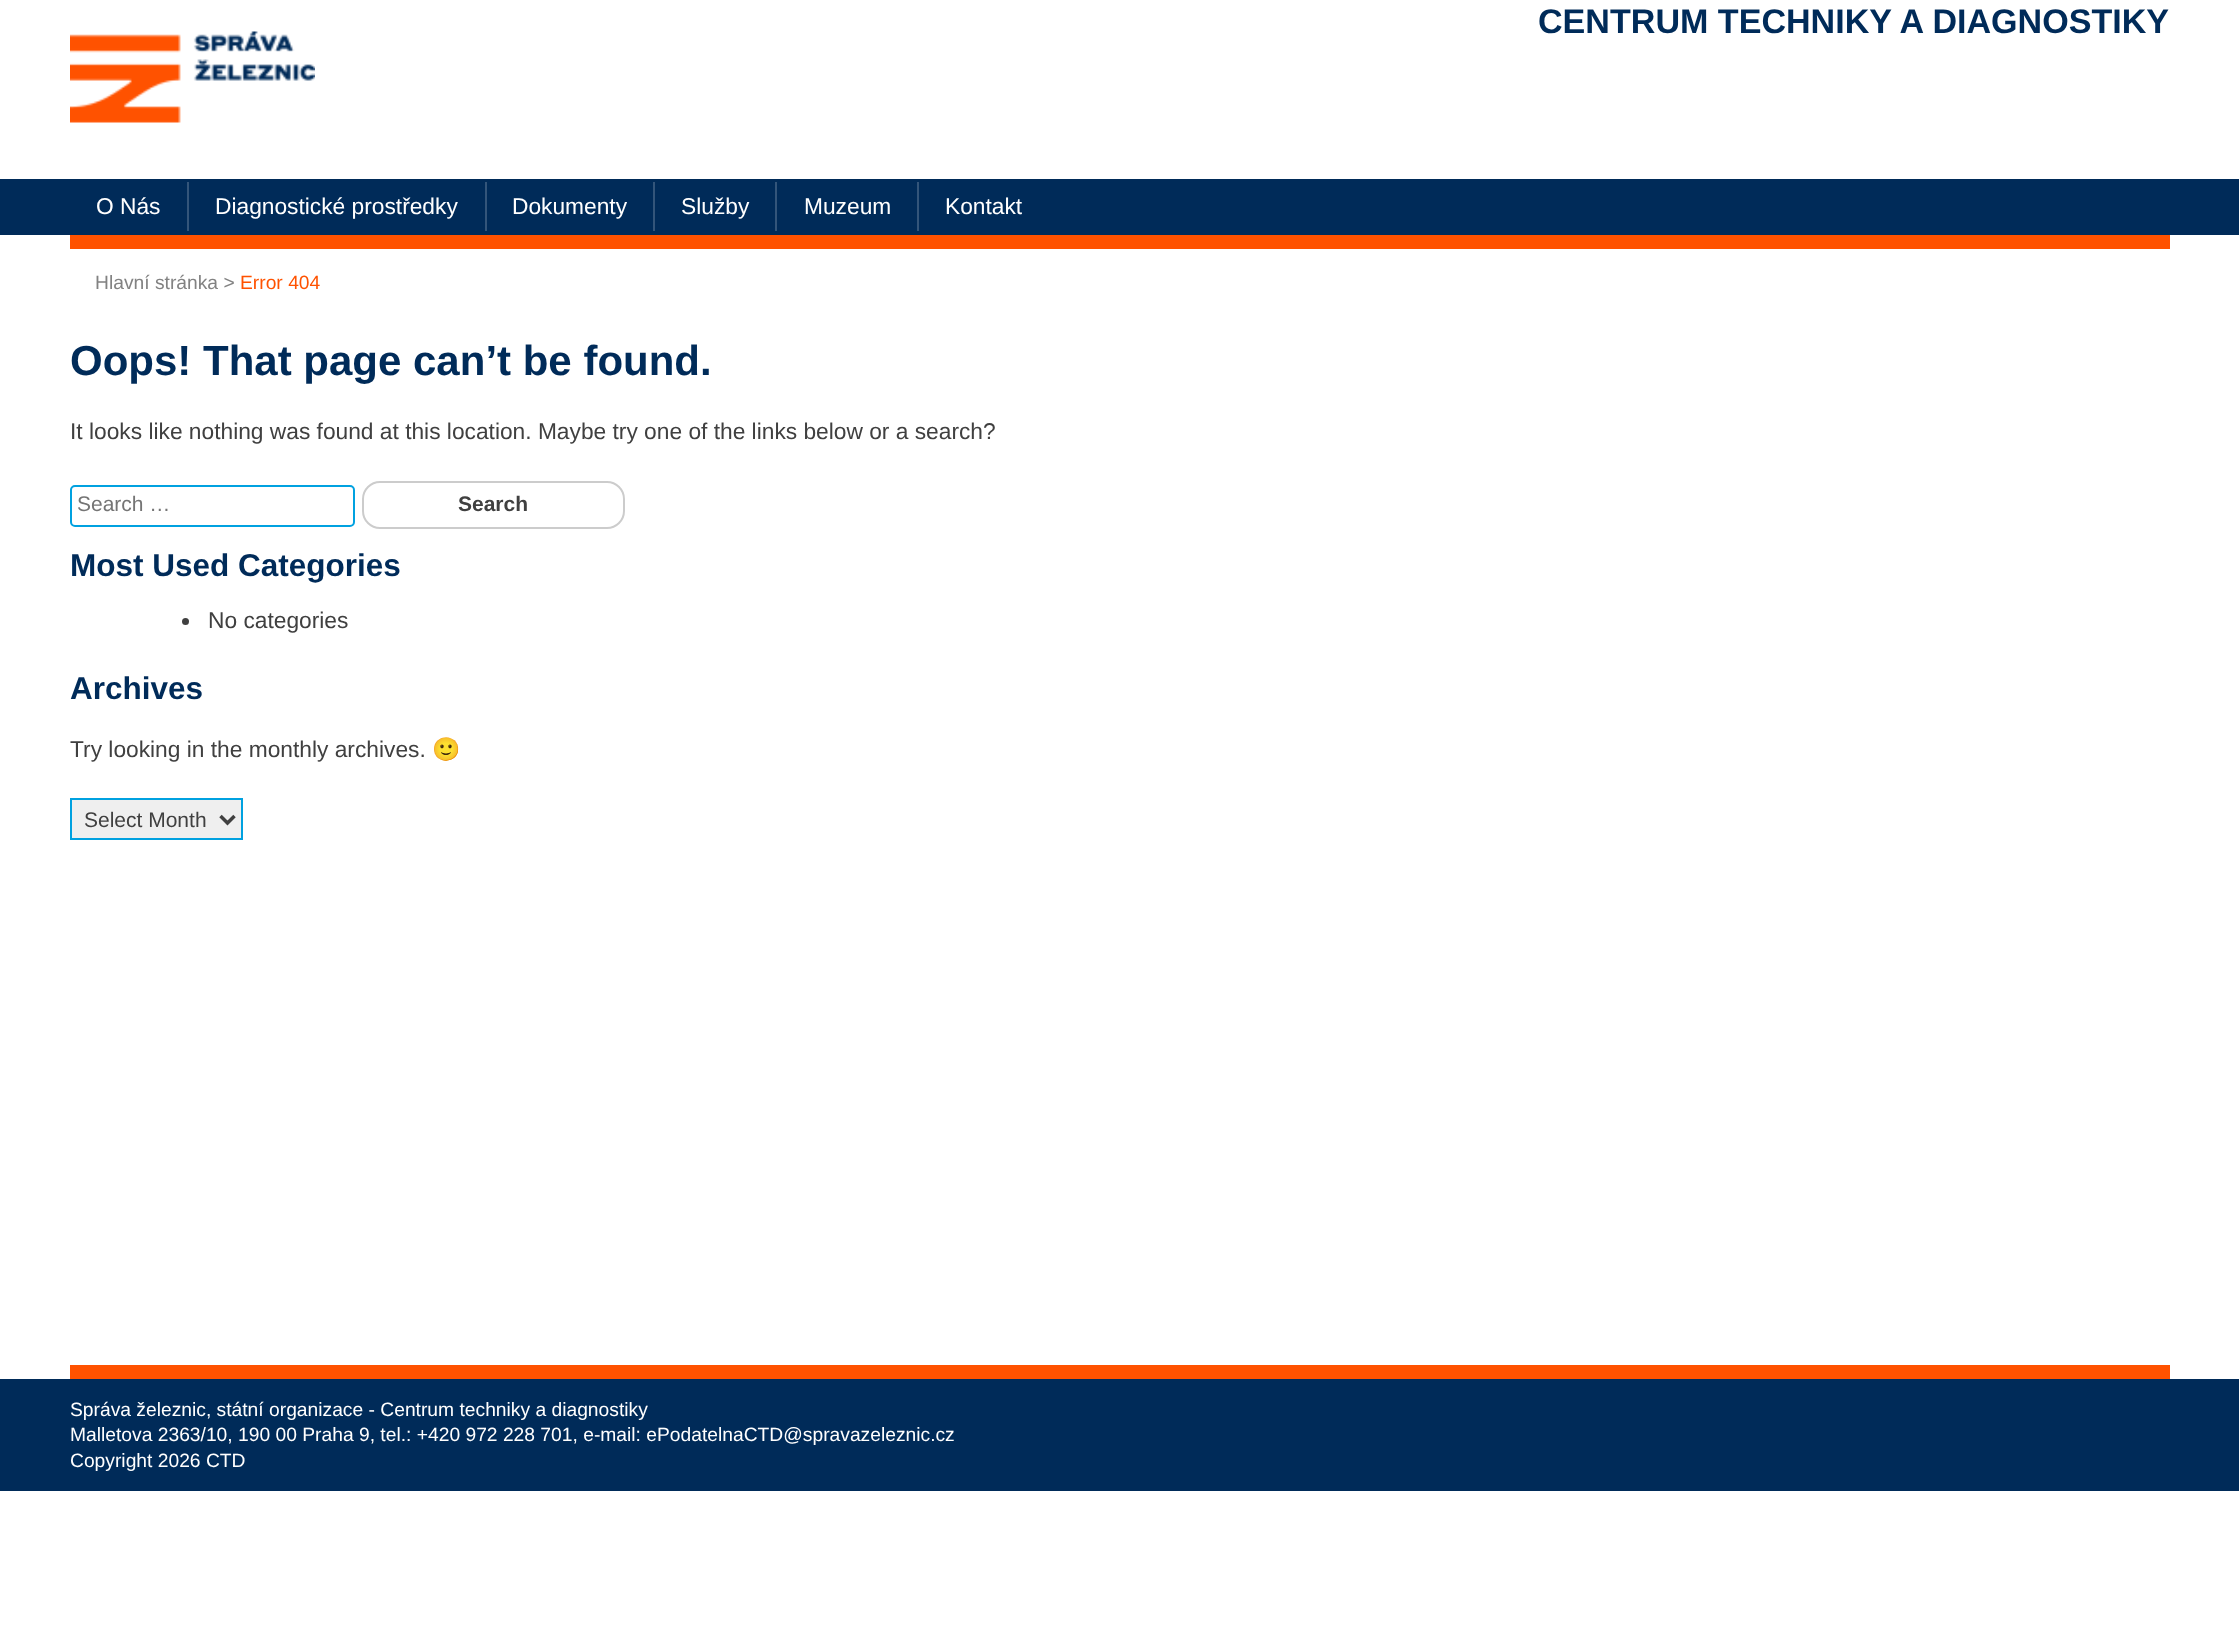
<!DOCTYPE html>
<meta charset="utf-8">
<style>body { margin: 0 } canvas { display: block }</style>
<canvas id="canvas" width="2239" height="1641"></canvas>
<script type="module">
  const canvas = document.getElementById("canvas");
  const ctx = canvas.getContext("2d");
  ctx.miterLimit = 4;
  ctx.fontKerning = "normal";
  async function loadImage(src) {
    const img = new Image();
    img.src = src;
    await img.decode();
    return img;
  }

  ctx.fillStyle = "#ffffff";
  ctx.fillRect(0, 0, 2239, 1641);
  ctx.font = "bold 34.1px Liberation Sans";
  ctx.fillStyle = "#002b59";
  ctx.fillText("CENTRUM TECHNIKY A DIAGNOSTIKY", 1538, 33);
  ctx.drawImage(await loadImage("img1.png"), 70, 31, 245, 92);
  ctx.fillRect(0, 179, 2239, 56);
  ctx.fillStyle = "#33557a";
  ctx.fillRect(187, 182, 2, 49);
  ctx.font = "22.75px Liberation Sans";
  ctx.fillStyle = "#ffffff";
  ctx.fillText("O Nás", 96, 214);
  ctx.fillStyle = "#33557a";
  ctx.fillRect(485, 182, 2, 49);
  ctx.fillStyle = "#ffffff";
  ctx.fillText("Diagnostické prostředky", 215, 214);
  ctx.fillStyle = "#33557a";
  ctx.fillRect(653, 182, 2, 49);
  ctx.fillStyle = "#ffffff";
  ctx.fillText("Dokumenty", 512, 214);
  ctx.fillStyle = "#33557a";
  ctx.fillRect(775, 182, 2, 49);
  ctx.fillStyle = "#ffffff";
  ctx.fillText("Služby", 681, 214);
  ctx.fillStyle = "#33557a";
  ctx.fillRect(917, 182, 2, 49);
  ctx.fillStyle = "#ffffff";
  ctx.fillText("Muzeum", 804, 214);
  ctx.fillText("Kontakt", 945, 214);
  ctx.fillStyle = "#ff5200";
  ctx.fillRect(70, 235, 2100, 14);
  ctx.font = "19.25px Liberation Sans";
  ctx.fillStyle = "#828282";
  ctx.fillText("Hlavní stránka >", 95, 289);
  ctx.fillStyle = "#ff5200";
  ctx.fillText("Error 404", 240, 289);
  ctx.font = "bold 42px Liberation Sans";
  ctx.fillStyle = "#002b59";
  ctx.fillText("Oops! That page can’t be found.", 70, 375);
  ctx.font = "22.75px Liberation Sans";
  ctx.fillStyle = "#404040";
  ctx.fillText("It looks like nothing was found at this location. Maybe try one of the links below or a search?", 70, 439);
  ctx.beginPath();
  ctx.roundRect(71, 486, 283, 40, 4);
  ctx.strokeStyle = "#00a1e0";
  ctx.lineWidth = 2;
  ctx.stroke();
  ctx.font = "21px Liberation Sans";
  ctx.fillStyle = "#757575";
  ctx.fillText("Search …", 77, 511);
  ctx.beginPath();
  ctx.roundRect(363, 482, 261, 46, 17);
  ctx.strokeStyle = "#cccccc";
  ctx.stroke();
  ctx.font = "bold 21px Liberation Sans";
  ctx.fillStyle = "#404040";
  ctx.fillText("Search", 458, 511);
  ctx.font = "bold 31.5px Liberation Sans";
  ctx.fillStyle = "#002b59";
  ctx.fillText("Most Used Categories", 70, 576);
  ctx.fillStyle = "#404040";
  ctx.beginPath();
  ctx.arc(185.5, 621.5, 3.5, 0, Math.PI * 2);
  ctx.fill();
  ctx.font = "22.75px Liberation Sans";
  ctx.fillText("No categories", 208, 628);
  ctx.font = "bold 31.5px Liberation Sans";
  ctx.fillStyle = "#002b59";
  ctx.fillText("Archives", 70, 699);
  ctx.font = "22.75px Liberation Sans";
  ctx.fillStyle = "#404040";
  ctx.fillText("Try looking in the monthly archives.", 70, 757);
  ctx.font = "22.75px Noto Color Emoji";
  ctx.fillText("🙂", 432, 757);
  ctx.fillStyle = "#efefef";
  ctx.beginPath();
  ctx.rect(71, 799, 171, 40);
  ctx.fill();
  ctx.strokeStyle = "#00a1e0";
  ctx.stroke();
  ctx.beginPath();
  ctx.moveTo(220.5, 816);
  ctx.lineTo(227.5, 823);
  ctx.lineTo(234.5, 816);
  ctx.strokeStyle = "#404040";
  ctx.lineWidth = 3.5;
  ctx.stroke();
  ctx.font = "21px Liberation Sans";
  ctx.fillStyle = "#404040";
  ctx.fillText("Select Month", 84, 827);
  ctx.fillStyle = "#ff5200";
  ctx.fillRect(70, 1365, 2100, 14);
  ctx.fillStyle = "#002b59";
  ctx.fillRect(0, 1379, 2239, 112);
  ctx.font = "19.25px Liberation Sans";
  ctx.fillStyle = "#ffffff";
  ctx.fillText("Správa železnic, státní organizace - Centrum techniky a diagnostiky", 70, 1416);
  ctx.fillText("Malletova 2363/10, 190 00 Praha 9, tel.: +420 972 228 701, e-mail: ePodatelnaCTD@spravazeleznic.cz", 70, 1441);
  ctx.fillText("Copyright 2026 CTD", 70, 1467);
</script>
